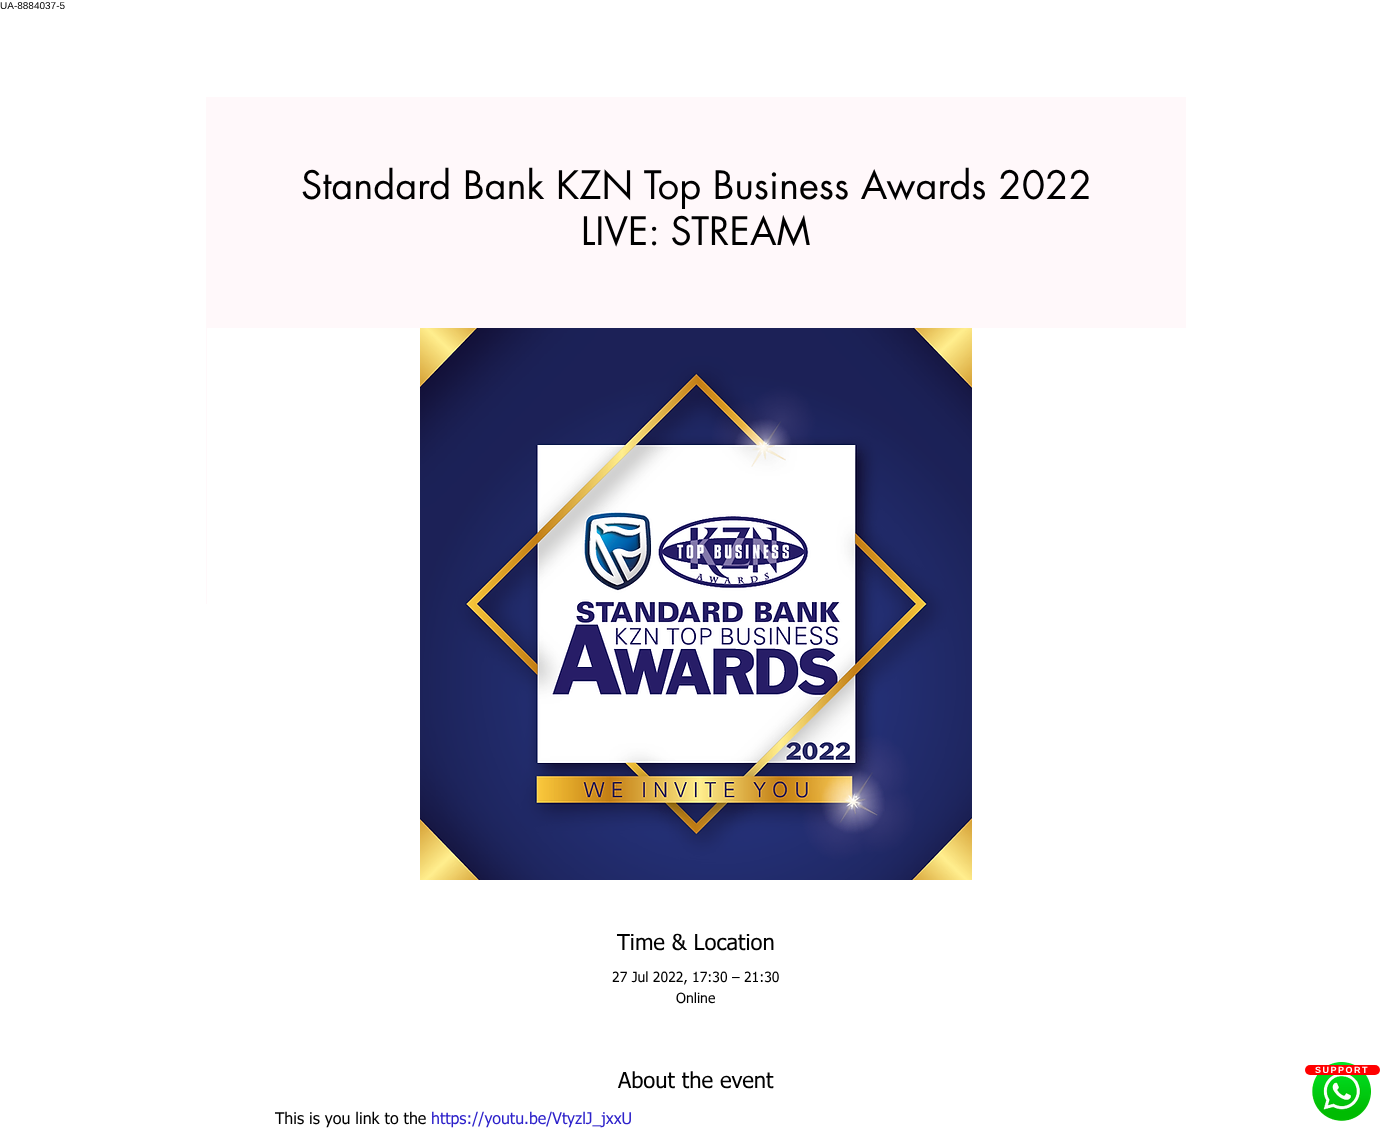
<!DOCTYPE html>
<meta charset="utf-8">
<style>body { margin: 0 } canvas { display: block }</style>
<canvas id="canvas" width="1392" height="1140"></canvas>
<script type="module">
  const canvas = document.getElementById("canvas");
  const ctx = canvas.getContext("2d");
  ctx.miterLimit = 4;
  ctx.fontKerning = "normal";
  async function loadImage(src) {
    const img = new Image();
    img.src = src;
    await img.decode();
    return img;
  }

  ctx.fillStyle = "#ffffff";
  ctx.fillRect(0, 0, 1392, 1140);
  ctx.font = "10px Liberation Sans";
  ctx.fillStyle = "#000000";
  ctx.fillText("UA-8884037-5", 0, 9);
  ctx.fillStyle = "#fff8fa";
  ctx.fillRect(206, 97, 980, 507);
  ctx.font = "38px futura";
  ctx.fillStyle = "#000000";
  ctx.fillText("Standard Bank KZN Top Business Awards 2022", 301, 199);
  ctx.fillText("LIVE: STREAM", 581, 245);
  ctx.fillStyle = "#ffffff";
  ctx.fillRect(207, 328, 979, 276);
  ctx.drawImage(await loadImage("img1.png"), 420, 328, 552, 552);
  ctx.font = "22px tahoma";
  ctx.fillStyle = "#000000";
  ctx.fillText("Time & Location", 617, 950);
  ctx.font = "14px tahoma";
  ctx.fillText("27 Jul 2022, 17:30 – 21:30", 612, 982);
  ctx.fillText("Online", 676, 1003);
  ctx.font = "22px tahoma";
  ctx.fillText("About the event", 618, 1088);
  ctx.font = "16px tahoma";
  ctx.fillText("This is you link to the", 275, 1124);
  ctx.fillStyle = "#2d21ca";
  ctx.fillText("https://youtu.be/VtyzlJ_jxxU", 431, 1124);
  ctx.drawImage(await loadImage("img2.png"), 1312, 1062, 59, 59);
  ctx.fillStyle = "#ff0000";
  ctx.beginPath();
  ctx.roundRect(1305, 1065, 75, 10, 5);
  ctx.fill();
  ctx.letterSpacing = "1.5px";
  ctx.font = "bold 9px Liberation Sans";
  ctx.fillStyle = "#ffffff";
  ctx.fillText("SUPPORT", 1315, 1073);
</script>
